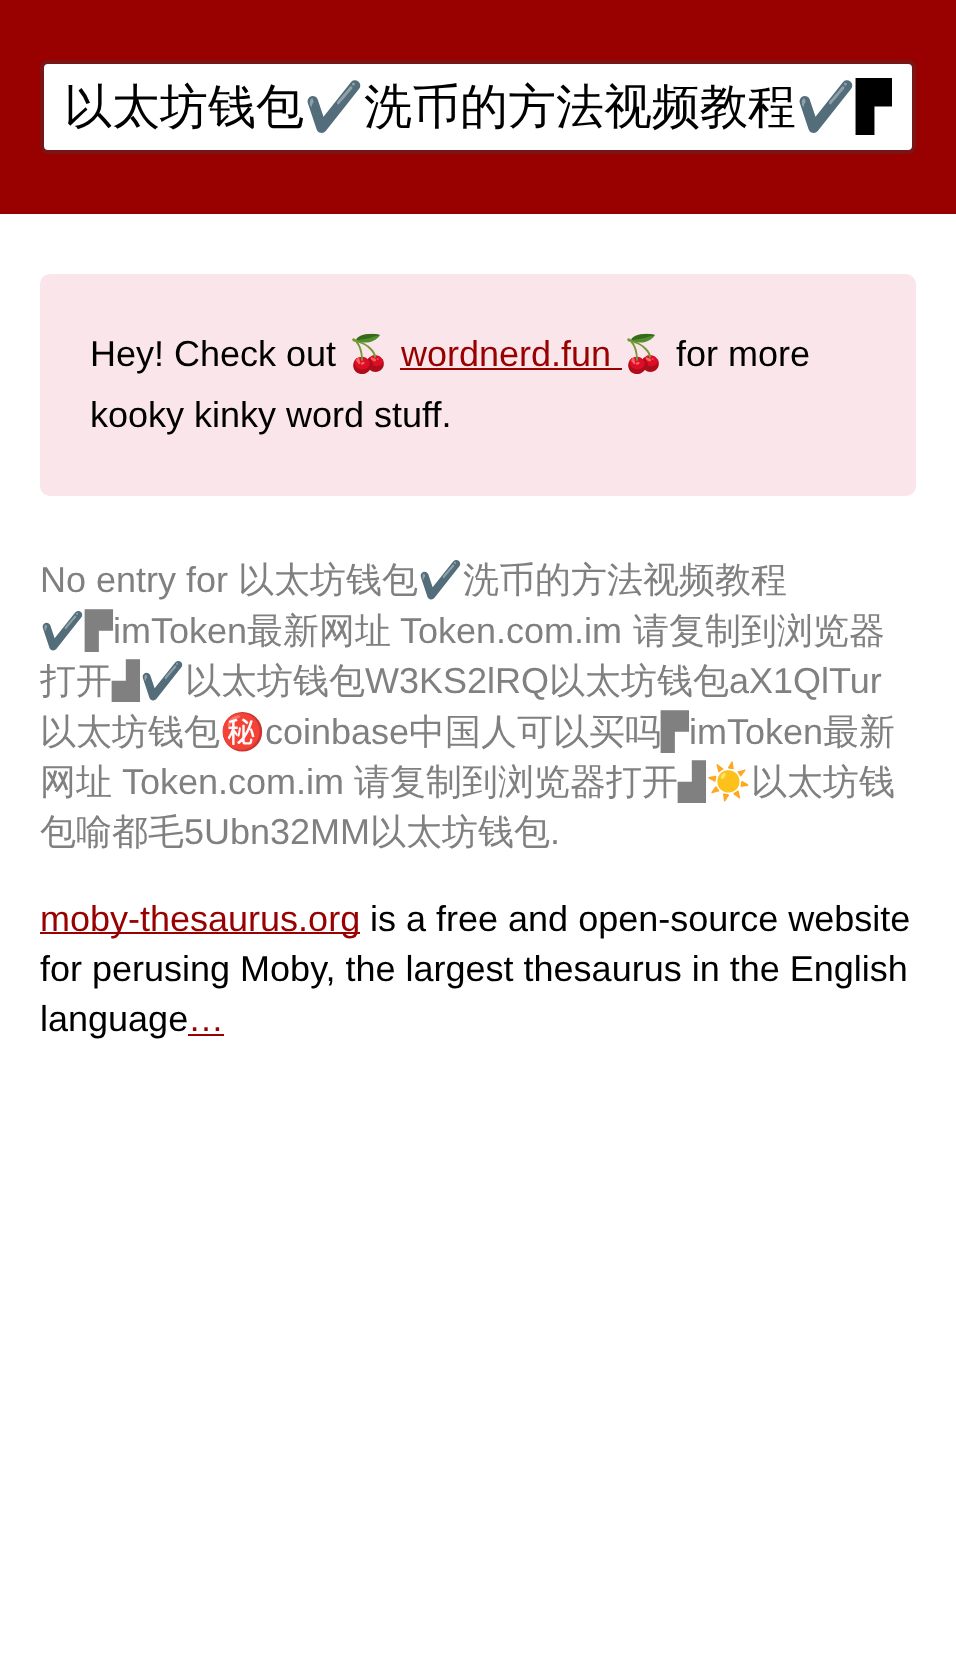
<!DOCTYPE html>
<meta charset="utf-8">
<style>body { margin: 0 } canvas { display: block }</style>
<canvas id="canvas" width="956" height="1660"></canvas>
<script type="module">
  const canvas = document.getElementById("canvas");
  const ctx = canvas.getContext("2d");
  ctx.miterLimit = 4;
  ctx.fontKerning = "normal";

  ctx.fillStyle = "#ffffff";
  ctx.fillRect(0, 0, 956, 1660);
  ctx.fillStyle = "#990000";
  ctx.fillRect(0, 0, 956, 214);
  ctx.fillStyle = "#ffffff";
  ctx.beginPath();
  ctx.roundRect(42, 62, 872, 90, 6);
  ctx.fill();
  ctx.strokeStyle = "#7b1515";
  ctx.lineWidth = 4;
  ctx.stroke();
  ctx.font = "500 48px WenQuanYi Zen Hei";
  ctx.fillStyle = "#000000";
  ctx.fillText("以太坊钱包", 64, 123);
  ctx.font = "48px Noto Color Emoji";
  ctx.fillText("✔️", 304, 123);
  ctx.font = "500 48px WenQuanYi Zen Hei";
  ctx.fillText("洗币的方法视频教程", 364, 123);
  ctx.font = "48px Noto Color Emoji";
  ctx.fillText("✔️", 796, 123);
  ctx.save();
  ctx.beginPath();
  ctx.rect(64, 76, 828, 64);
  ctx.clip();
  ctx.font = "48px DejaVu Sans";
  ctx.fillText("▛", 856, 123);
  ctx.restore();
  ctx.fillStyle = "#fae6ea";
  ctx.beginPath();
  ctx.roundRect(40, 274, 876, 222, 10);
  ctx.fill();
  ctx.font = "36px Liberation Sans";
  ctx.fillStyle = "#000000";
  ctx.fillText("Hey! Check out", 90, 366);
  ctx.font = "36px Noto Color Emoji";
  ctx.fillText("🍒", 346, 366);
  ctx.font = "36px Liberation Sans";
  ctx.fillStyle = "#990000";
  ctx.fillText("wordnerd.fun", 401, 366);
  ctx.fillRect(400, 368, 222, 2);
  ctx.font = "36px Noto Color Emoji";
  ctx.fillStyle = "#000000";
  ctx.fillText("🍒", 621, 366);
  ctx.font = "36px Liberation Sans";
  ctx.fillText("for more", 676, 366);
  ctx.fillText("kooky kinky word stuff.", 90, 427);
  ctx.fillStyle = "#808080";
  ctx.fillText("No entry for", 40, 592);
  ctx.font = "500 36px WenQuanYi Zen Hei";
  ctx.fillText("以太坊钱包", 238, 592);
  ctx.font = "36px Noto Color Emoji";
  ctx.fillText("✔️", 418, 592);
  ctx.font = "500 36px WenQuanYi Zen Hei";
  ctx.fillText("洗币的方法视频教程", 463, 592);
  ctx.font = "36px Noto Color Emoji";
  ctx.fillText("✔️", 40, 643);
  ctx.font = "36px DejaVu Sans";
  ctx.fillText("▛", 85, 643);
  ctx.font = "36px Liberation Sans";
  ctx.fillText("imToken", 113, 643);
  ctx.font = "500 36px WenQuanYi Zen Hei";
  ctx.fillText("最新网址", 247, 643);
  ctx.font = "36px Liberation Sans";
  ctx.fillText("Token.com.im", 400, 643);
  ctx.font = "500 36px WenQuanYi Zen Hei";
  ctx.fillText("请复制到浏览器", 633, 643);
  ctx.fillText("打开", 40, 693);
  ctx.font = "36px DejaVu Sans";
  ctx.fillText("▟", 112, 693);
  ctx.font = "36px Noto Color Emoji";
  ctx.fillText("✔️", 140, 693);
  ctx.font = "500 36px WenQuanYi Zen Hei";
  ctx.fillText("以太坊钱包", 185, 693);
  ctx.font = "36px Liberation Sans";
  ctx.fillText("W3KS2lRQ", 365, 693);
  ctx.font = "500 36px WenQuanYi Zen Hei";
  ctx.fillText("以太坊钱包", 549, 693);
  ctx.font = "36px Liberation Sans";
  ctx.fillText("aX1QlTur", 729, 693);
  ctx.font = "500 36px WenQuanYi Zen Hei";
  ctx.fillText("以太坊钱包", 40, 744);
  ctx.font = "36px Noto Color Emoji";
  ctx.fillText("㊙️", 220, 744);
  ctx.font = "36px Liberation Sans";
  ctx.fillText("coinbase", 265, 744);
  ctx.font = "500 36px WenQuanYi Zen Hei";
  ctx.fillText("中国人可以买吗", 409, 744);
  ctx.font = "36px DejaVu Sans";
  ctx.fillText("▛", 661, 744);
  ctx.font = "36px Liberation Sans";
  ctx.fillText("imToken", 689, 744);
  ctx.font = "500 36px WenQuanYi Zen Hei";
  ctx.fillText("最新", 823, 744);
  ctx.fillText("网址", 40, 794);
  ctx.font = "36px Liberation Sans";
  ctx.fillText("Token.com.im", 122, 794);
  ctx.font = "500 36px WenQuanYi Zen Hei";
  ctx.fillText("请复制到浏览器打开", 354, 794);
  ctx.font = "36px DejaVu Sans";
  ctx.fillText("▟", 678, 794);
  ctx.font = "36px Noto Color Emoji";
  ctx.fillText("☀️", 706, 794);
  ctx.font = "500 36px WenQuanYi Zen Hei";
  ctx.fillText("以太坊钱", 751, 794);
  ctx.fillText("包喻都毛", 40, 844);
  ctx.font = "36px Liberation Sans";
  ctx.fillText("5Ubn32MM", 184, 844);
  ctx.font = "500 36px WenQuanYi Zen Hei";
  ctx.fillText("以太坊钱包", 370, 844);
  ctx.font = "36px Liberation Sans";
  ctx.fillText(".", 550, 844);
  ctx.fillStyle = "#990000";
  ctx.fillRect(40, 932, 320, 2);
  ctx.fillText("moby-thesaurus.org", 40, 931);
  ctx.fillStyle = "#000000";
  ctx.fillText("is a free and open-source website", 370, 931);
  ctx.fillText("for perusing Moby, the largest thesaurus in the English", 40, 981);
  ctx.fillText("language", 40, 1031);
  ctx.fillStyle = "#990000";
  ctx.fillText("…", 188, 1031);
  ctx.fillRect(188, 1034, 36, 2);
</script>
